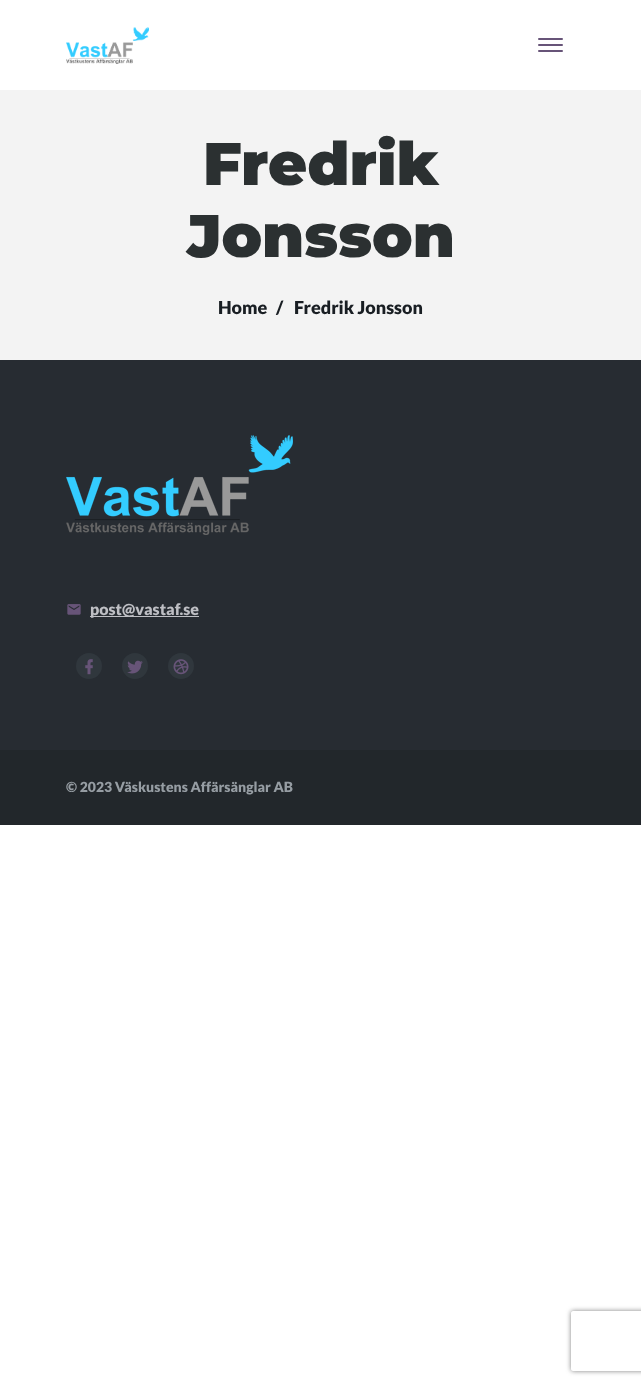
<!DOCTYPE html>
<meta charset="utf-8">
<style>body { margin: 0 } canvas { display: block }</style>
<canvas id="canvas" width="641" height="1385"></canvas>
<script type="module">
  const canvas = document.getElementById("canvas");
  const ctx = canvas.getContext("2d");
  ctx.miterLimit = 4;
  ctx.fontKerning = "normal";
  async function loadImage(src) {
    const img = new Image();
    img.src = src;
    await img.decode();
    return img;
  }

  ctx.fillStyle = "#ffffff";
  ctx.fillRect(0, 0, 641, 1385);
  ctx.drawImage(await loadImage("img1.png"), 66, 27, 83, 37);
  ctx.fillStyle = "#675478";
  ctx.beginPath();
  ctx.roundRect(538, 38, 25, 2, 1);
  ctx.fill();
  ctx.beginPath();
  ctx.roundRect(538, 44, 25, 2, 1);
  ctx.fill();
  ctx.beginPath();
  ctx.roundRect(538, 50, 25, 2, 1);
  ctx.fill();
  ctx.fillStyle = "#f3f3f3";
  ctx.fillRect(0, 90, 641, 270);
  ctx.font = "900 60px Montserrat";
  ctx.fillStyle = "#2b3031";
  ctx.fillText("Fredrik", 203, 185);
  ctx.fillText("Jonsson", 187, 257);
  ctx.font = "900 18px Lato";
  ctx.fillStyle = "#191e23";
  ctx.fillText("Home", 218, 314);
  ctx.fillText("/", 276, 314);
  ctx.fillText("Fredrik Jonsson", 294, 314);
  ctx.fillStyle = "#272c32";
  ctx.fillRect(0, 360, 641, 390);
  ctx.drawImage(await loadImage("img2.png"), 66, 435, 227, 100);
  ctx.drawImage(await loadImage("img3.png"), 67, 604, 14, 11);
  ctx.fillStyle = "#bebfc4";
  ctx.fillRect(90, 616, 109, 1);
  ctx.font = "900 16px Lato";
  ctx.fillText("post@vastaf.se", 90, 615);
  ctx.fillStyle = "#30373d";
  ctx.beginPath();
  ctx.arc(89, 666, 13, 0, Math.PI * 2);
  ctx.fill();
  ctx.drawImage(await loadImage("img4.png"), 85, 659, 8, 16);
  ctx.beginPath();
  ctx.arc(135, 666, 13, 0, Math.PI * 2);
  ctx.fill();
  ctx.drawImage(await loadImage("img5.png"), 127, 660, 16, 14);
  ctx.beginPath();
  ctx.arc(181, 666, 13, 0, Math.PI * 2);
  ctx.fill();
  ctx.drawImage(await loadImage("img6.png"), 173, 659, 16, 16);
  ctx.fillStyle = "#22272b";
  ctx.fillRect(0, 750, 641, 75);
  ctx.font = "900 14px Lato";
  ctx.fillStyle = "#969da3";
  ctx.fillText("© 2023 Väskustens Affärsänglar AB", 66, 792);
  ctx.save();
  ctx.beginPath();
  ctx.moveTo(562, 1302);
  ctx.lineTo(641, 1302);
  ctx.lineTo(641, 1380);
  ctx.lineTo(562, 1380);
  ctx.closePath();
  ctx.moveTo(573, 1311);
  ctx.lineTo(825, 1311);
  ctx.bezierCurveTo(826, 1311, 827, 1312, 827, 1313);
  ctx.lineTo(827, 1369);
  ctx.bezierCurveTo(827, 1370, 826, 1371, 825, 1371);
  ctx.lineTo(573, 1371);
  ctx.bezierCurveTo(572, 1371, 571, 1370, 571, 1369);
  ctx.lineTo(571, 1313);
  ctx.bezierCurveTo(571, 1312, 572, 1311, 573, 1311);
  ctx.closePath();
  ctx.clip("evenodd");
  ctx.fillStyle = "#808080";
  ctx.filter = "blur(2.5px)";
  ctx.beginPath();
  ctx.roundRect(571, 1311, 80, 60, 2);
  ctx.fill();
  ctx.filter = "none";
  ctx.restore();
</script>
